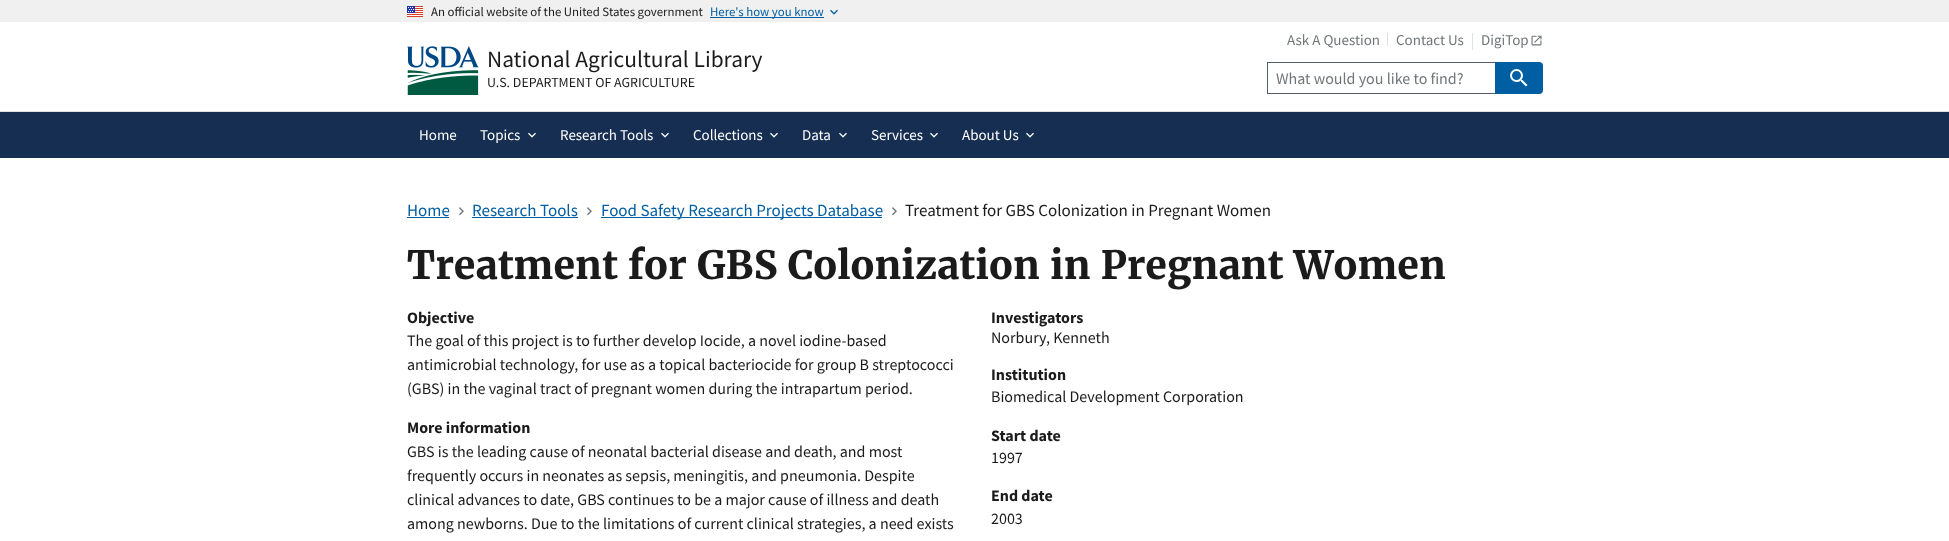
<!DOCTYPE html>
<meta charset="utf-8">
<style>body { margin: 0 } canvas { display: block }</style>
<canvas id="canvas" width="1949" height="541"></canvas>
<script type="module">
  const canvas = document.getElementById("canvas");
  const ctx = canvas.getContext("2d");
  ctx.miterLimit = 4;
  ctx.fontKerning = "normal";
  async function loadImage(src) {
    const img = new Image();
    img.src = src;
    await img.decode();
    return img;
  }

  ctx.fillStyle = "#ffffff";
  ctx.fillRect(0, 0, 1949, 541);
  ctx.fillStyle = "#f0f0f0";
  ctx.fillRect(0, 0, 1949, 22);
  ctx.drawImage(await loadImage("img1.png"), 407, 6, 16, 11);
  ctx.font = "12.8px Source Sans Pro";
  ctx.fillStyle = "#1b1b1b";
  ctx.fillText("An official website of the United States government", 431, 16);
  ctx.fillStyle = "#005ea2";
  ctx.fillRect(710, 17, 114, 1);
  ctx.fillText("Here's how you know", 710, 16);
  ctx.drawImage(await loadImage("img2.png"), 830, 9, 8, 6);
  ctx.fillStyle = "#162e51";
  ctx.fillRect(0, 112, 1949, 46);
  ctx.fillStyle = "#dfe1e2";
  ctx.fillRect(0, 111, 1949, 1);
  ctx.font = "15px Source Sans Pro";
  ctx.fillStyle = "#71767a";
  ctx.fillText("Ask A Question", 1287, 45);
  ctx.fillStyle = "#dfe1e2";
  ctx.fillRect(1387, 33, 1, 13);
  ctx.fillStyle = "#71767a";
  ctx.fillText("Contact Us", 1396, 45);
  ctx.fillStyle = "#dfe1e2";
  ctx.fillRect(1472, 33, 1, 17);
  ctx.fillStyle = "#71767a";
  ctx.fillText("DigiTop", 1481, 45);
  ctx.drawImage(await loadImage("img3.png"), 1531, 35, 11, 11);
  ctx.fillStyle = "#565c65";
  ctx.fillRect(1267, 62, 228, 1);
  ctx.fillRect(1267, 93, 228, 1);
  ctx.fillRect(1267, 62, 1, 32);
  ctx.font = "16px Source Sans Pro";
  ctx.fillStyle = "#71767a";
  ctx.fillText("What would you like to find?", 1276, 84);
  ctx.fillStyle = "#005ea2";
  ctx.beginPath();
  ctx.roundRect(1495, 62, 48, 32, [0, 4, 4, 0]);
  ctx.fill();
  ctx.drawImage(await loadImage("img4.png"), 1510, 69, 18, 18);
  ctx.font = "15px Source Sans Pro";
  ctx.fillStyle = "#ffffff";
  ctx.fillText("Home", 419, 140);
  ctx.fillText("Topics", 480, 140);
  ctx.drawImage(await loadImage("img5.png"), 528, 132, 8, 6);
  ctx.fillText("Research Tools", 560, 140);
  ctx.drawImage(await loadImage("img5.png"), 661, 132, 8, 6);
  ctx.fillText("Collections", 693, 140);
  ctx.drawImage(await loadImage("img5.png"), 770, 132, 8, 6);
  ctx.fillText("Data", 802, 140);
  ctx.drawImage(await loadImage("img5.png"), 839, 132, 8, 6);
  ctx.fillText("Services", 871, 140);
  ctx.drawImage(await loadImage("img5.png"), 930, 132, 8, 6);
  ctx.fillText("About Us", 962, 140);
  ctx.drawImage(await loadImage("img5.png"), 1026, 132, 8, 6);
  ctx.drawImage(await loadImage("img6.png"), 407, 46, 72, 49);
  ctx.font = "23.4px Source Sans Pro";
  ctx.fillStyle = "#1b1b1b";
  ctx.fillText("National Agricultural Library", 487, 67);
  ctx.font = "13.9px Source Sans Pro";
  ctx.fillText("U.S. DEPARTMENT OF AGRICULTURE", 487, 87);
  ctx.font = "17px Source Sans Pro";
  ctx.fillStyle = "#005ea2";
  ctx.fillText("Home", 407, 216);
  ctx.fillRect(407, 217, 42, 1);
  ctx.drawImage(await loadImage("img7.png"), 459, 207, 5, 9);
  ctx.fillText("Research Tools", 472, 216);
  ctx.fillRect(472, 217, 106, 1);
  ctx.drawImage(await loadImage("img7.png"), 587, 207, 5, 9);
  ctx.fillRect(601, 217, 281, 1);
  ctx.fillText("Food Safety Research Projects Database", 601, 216);
  ctx.drawImage(await loadImage("img7.png"), 892, 207, 5, 9);
  ctx.fillStyle = "#1b1b1b";
  ctx.fillText("Treatment for GBS Colonization in Pregnant Women", 905, 216);
  ctx.font = "bold 39.05px Merriweather";
  ctx.fillText("Treatment for GBS Colonization in Pregnant Women", 407, 279);
  ctx.font = "bold 16px Source Sans Pro";
  ctx.fillText("Objective", 407, 323);
  ctx.font = "16px Source Sans Pro";
  ctx.fillText("The goal of this project is to further develop Iocide, a novel iodine-based", 407, 346);
  ctx.fillText("antimicrobial technology, for use as a topical bacteriocide for group B streptococci", 407, 370);
  ctx.fillText("(GBS) in the vaginal tract of pregnant women during the intrapartum period.", 407, 394);
  ctx.font = "bold 16px Source Sans Pro";
  ctx.fillText("More information", 407, 433);
  ctx.font = "16px Source Sans Pro";
  ctx.fillText("GBS is the leading cause of neonatal bacterial disease and death, and most", 407, 457);
  ctx.fillText("frequently occurs in neonates as sepsis, meningitis, and pneumonia. Despite", 407, 481);
  ctx.fillText("clinical advances to date, GBS continues to be a major cause of illness and death", 407, 505);
  ctx.fillText("among newborns. Due to the limitations of current clinical strategies, a need exists", 407, 529);
  ctx.font = "bold 16px Source Sans Pro";
  ctx.fillText("Investigators", 991, 323);
  ctx.font = "16px Source Sans Pro";
  ctx.fillText("Norbury, Kenneth", 991, 343);
  ctx.font = "bold 16px Source Sans Pro";
  ctx.fillText("Institution", 991, 380);
  ctx.font = "16px Source Sans Pro";
  ctx.fillText("Biomedical Development Corporation", 991, 402);
  ctx.font = "bold 16px Source Sans Pro";
  ctx.fillText("Start date", 991, 441);
  ctx.font = "16px Source Sans Pro";
  ctx.fillText("1997", 991, 463);
  ctx.font = "bold 16px Source Sans Pro";
  ctx.fillText("End date", 991, 501);
  ctx.font = "16px Source Sans Pro";
  ctx.fillText("2003", 991, 524);
</script>
